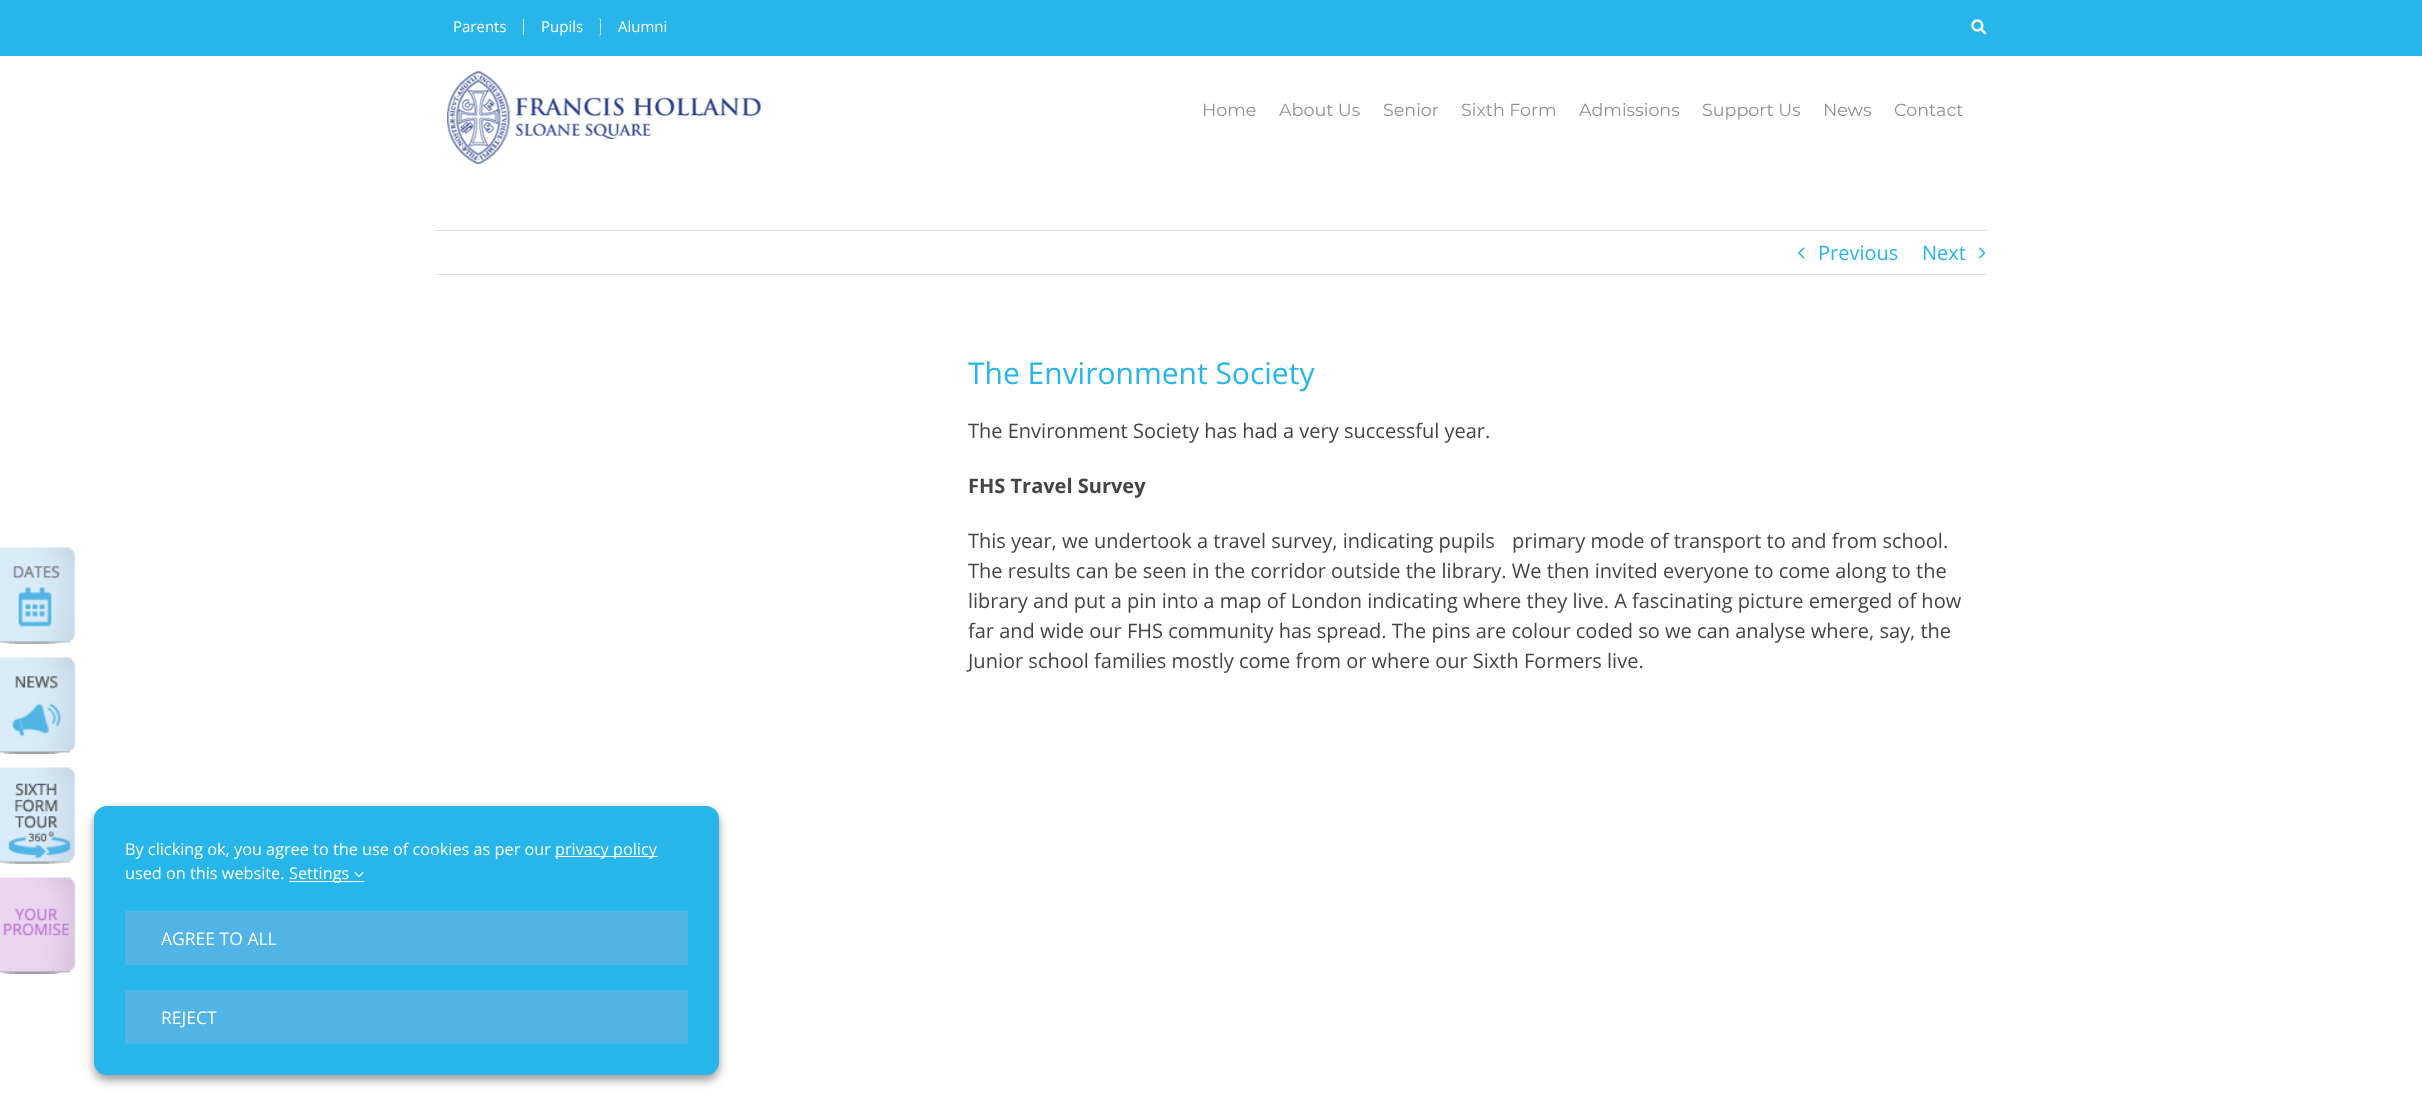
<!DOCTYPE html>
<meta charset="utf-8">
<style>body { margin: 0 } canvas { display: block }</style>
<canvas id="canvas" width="2422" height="1099"></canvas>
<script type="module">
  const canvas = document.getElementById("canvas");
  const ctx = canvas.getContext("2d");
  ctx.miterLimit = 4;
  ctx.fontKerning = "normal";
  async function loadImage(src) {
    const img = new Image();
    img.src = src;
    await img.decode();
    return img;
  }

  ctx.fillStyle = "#ffffff";
  ctx.fillRect(0, 0, 2422, 1099);
  ctx.fillStyle = "#26b6ea";
  ctx.fillRect(0, 0, 2422, 56);
  ctx.fillStyle = "#e5e5e5";
  ctx.fillRect(523, 19, 1, 16);
  ctx.font = "15px Open Sans";
  ctx.fillStyle = "#ffffff";
  ctx.fillText("Parents", 453, 32);
  ctx.fillStyle = "#e5e5e5";
  ctx.beginPath();
  ctx.moveTo(601, 20);
  ctx.bezierCurveTo(601, 19, 600, 18, 599, 18);
  ctx.bezierCurveTo(601, 20, 600, 24.5, 600, 27);
  ctx.bezierCurveTo(600, 29.5, 601, 34, 599, 36);
  ctx.bezierCurveTo(600, 36, 601, 35, 601, 34);
  ctx.closePath();
  ctx.fill();
  ctx.fillStyle = "#ffffff";
  ctx.fillText("Pupils", 541, 32);
  ctx.fillText("Alumni", 618, 32);
  ctx.drawImage(await loadImage("img1.png"), 1971, 19, 16, 16);
  ctx.drawImage(await loadImage("img2.png"), 447, 71, 314, 93);
  ctx.font = "100 17.5px Montserrat";
  ctx.fillStyle = "#919195";
  ctx.fillText("Home", 1202, 116);
  ctx.fillText("About Us", 1279, 116);
  ctx.fillText("Senior", 1383, 116);
  ctx.fillText("Sixth Form", 1461, 116);
  ctx.fillText("Admissions", 1579, 116);
  ctx.fillText("Support Us", 1702, 116);
  ctx.fillText("News", 1823, 116);
  ctx.fillText("Contact", 1894, 116);
  ctx.fillStyle = "#e0dede";
  ctx.fillRect(436, 230, 1550, 1);
  ctx.fillRect(436, 274, 1550, 1);
  ctx.drawImage(await loadImage("img3.png"), 1798, 247, 7, 12);
  ctx.font = "20px Open Sans";
  ctx.fillStyle = "#26b6ea";
  ctx.fillText("Previous", 1818, 260);
  ctx.fillText("Next", 1922, 260);
  ctx.drawImage(await loadImage("img4.png"), 1978, 247, 8, 12);
  ctx.font = "30px Open Sans";
  ctx.fillText("The Environment Society", 968, 384);
  ctx.font = "20px Open Sans";
  ctx.fillStyle = "#444444";
  ctx.fillText("The Environment Society has had a very successful year.", 968, 438);
  ctx.font = "bold 20px Open Sans";
  ctx.fillText("FHS Travel Survey", 968, 493);
  ctx.font = "20px Open Sans";
  ctx.fillText("This year, we undertook a travel survey, indicating pupils", 968, 548);
  ctx.fillText("primary mode of transport to and from school.", 1512, 548);
  ctx.fillText("The results can be seen in the corridor outside the library. We then invited everyone to come along to the", 968, 578);
  ctx.fillText("library and put a pin into a map of London indicating where they live. A fascinating picture emerged of how", 968, 608);
  ctx.fillText("far and wide our FHS community has spread. The pins are colour coded so we can analyse where, say, the", 968, 638);
  ctx.fillText("Junior school families mostly come from or where our Sixth Formers live.", 968, 668);
  ctx.drawImage(await loadImage("img5.png"), 0, 547, 76, 97);
  ctx.drawImage(await loadImage("img6.png"), 0, 657, 76, 97);
  ctx.drawImage(await loadImage("img7.png"), 0, 767, 76, 97);
  ctx.drawImage(await loadImage("img8.png"), 0, 877, 76, 97);
  ctx.fillStyle = "rgba(0, 0, 0, 0.4)";
  ctx.filter = "blur(5px)";
  ctx.beginPath();
  ctx.roundRect(94, 811, 625, 269, 13);
  ctx.fill();
  ctx.filter = "none";
  ctx.fillStyle = "#26b6ea";
  ctx.beginPath();
  ctx.roundRect(94, 806, 625, 269, 13);
  ctx.fill();
  ctx.font = "16.25px Open Sans";
  ctx.fillStyle = "#ffffff";
  ctx.fillText("By clicking ok, you agree to the use of cookies as per our", 125, 855);
  ctx.fillRect(555, 856, 103, 1);
  ctx.fillText("privacy policy", 555, 855);
  ctx.fillText("used on this website.", 125, 879);
  ctx.fillRect(289, 881, 75, 1);
  ctx.fillText("Settings", 289, 879);
  ctx.drawImage(await loadImage("img9.png"), 354, 872, 10, 6);
  ctx.fillStyle = "#51b4e6";
  ctx.fillRect(125, 911, 563, 54);
  ctx.font = "17.5px Open Sans";
  ctx.fillStyle = "#ffffff";
  ctx.fillText("AGREE TO ALL", 161, 945);
  ctx.fillStyle = "#51b4e6";
  ctx.fillRect(125, 990, 563, 54);
  ctx.fillStyle = "#ffffff";
  ctx.fillText("REJECT", 161, 1024);
</script>
